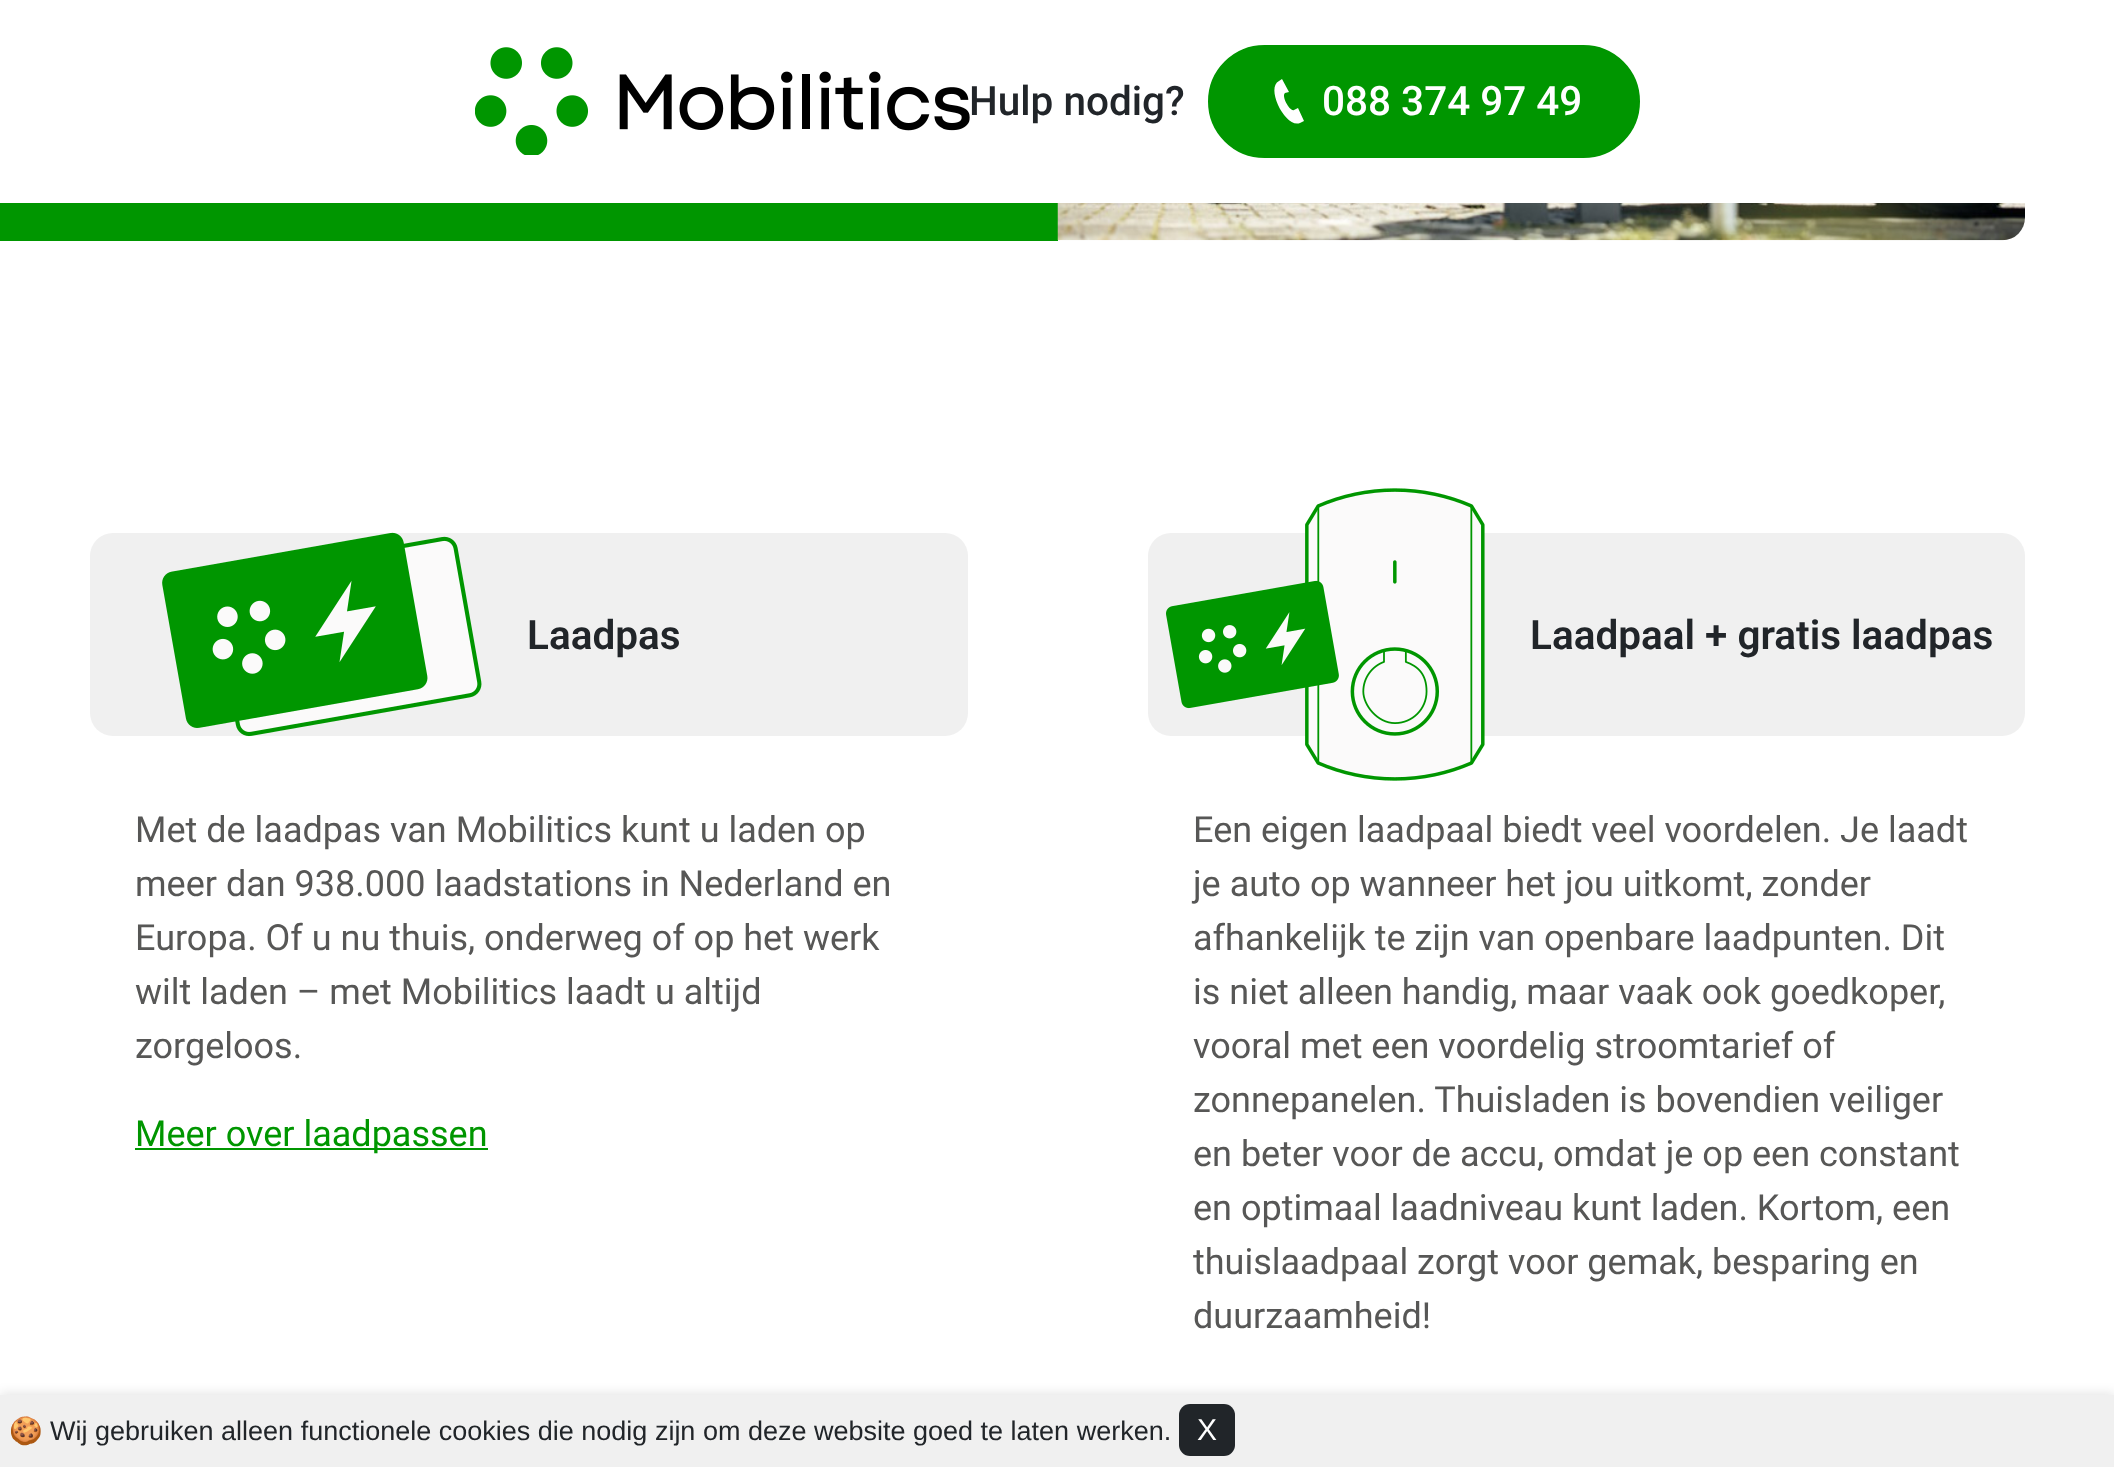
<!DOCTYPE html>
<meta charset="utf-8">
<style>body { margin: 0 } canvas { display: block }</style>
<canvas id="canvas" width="2114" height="1467"></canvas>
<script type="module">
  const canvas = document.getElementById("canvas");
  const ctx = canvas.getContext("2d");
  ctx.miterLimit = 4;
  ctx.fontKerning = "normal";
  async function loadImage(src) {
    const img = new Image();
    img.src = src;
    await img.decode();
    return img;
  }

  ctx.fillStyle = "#ffffff";
  ctx.fillRect(0, 0, 2114, 1467);
  ctx.drawImage(await loadImage("img1.png"), 475, 47, 495, 108);
  ctx.font = "500 40.5px Roboto";
  ctx.fillStyle = "#212529";
  ctx.fillText("Hulp nodig?", 969, 115);
  ctx.fillStyle = "#009600";
  ctx.beginPath();
  ctx.roundRect(1209, 46, 430, 111, 55.5);
  ctx.fill();
  ctx.strokeStyle = "#009600";
  ctx.lineWidth = 2;
  ctx.stroke();
  ctx.fillStyle = "#ffffff";
  ctx.beginPath();
  ctx.moveTo(1304, 121);
  ctx.lineTo(1298, 108);
  ctx.lineTo(1294, 110);
  ctx.bezierCurveTo(1290, 112, 1281, 96, 1285, 93);
  ctx.lineTo(1289, 92);
  ctx.lineTo(1282, 79);
  ctx.lineTo(1279, 81);
  ctx.bezierCurveTo(1265, 88, 1286, 129, 1300, 123);
  ctx.closePath();
  ctx.fill();
  ctx.fillText("088 374 97 49", 1322, 115);
  ctx.fillStyle = "#009600";
  ctx.fillRect(0, 203, 1058, 38);
  ctx.drawImage(await loadImage("img2.png"), 1057, 203, 968, 38);
  ctx.fillStyle = "#f0f0f0";
  ctx.beginPath();
  ctx.roundRect(90, 533, 878, 203, 23);
  ctx.fill();
  ctx.drawImage(await loadImage("img3.png"), 162, 532, 320, 205);
  ctx.font = "600 40.5px Roboto";
  ctx.fillStyle = "#212529";
  ctx.fillText("Laadpas", 527, 649);
  ctx.font = "36px Roboto";
  ctx.fillStyle = "#575756";
  ctx.fillText("Met de laadpas van Mobilitics kunt u laden op", 135, 842);
  ctx.fillText("meer dan 938.000 laadstations in Nederland en", 135, 896);
  ctx.fillText("Europa. Of u nu thuis, onderweg of op het werk", 135, 950);
  ctx.fillText("wilt laden – met Mobilitics laadt u altijd", 135, 1004);
  ctx.fillText("zorgeloos.", 135, 1058);
  ctx.fillStyle = "#009600";
  ctx.fillRect(135, 1148, 353, 2);
  ctx.fillText("Meer over laadpassen", 135, 1146);
  ctx.fillStyle = "#f0f0f0";
  ctx.beginPath();
  ctx.roundRect(1148, 533, 877, 203, 23);
  ctx.fill();
  ctx.drawImage(await loadImage("img4.png"), 1166, 488, 319, 293);
  ctx.font = "600 40.5px Roboto";
  ctx.fillStyle = "#212529";
  ctx.fillText("Laadpaal + gratis laadpas", 1530, 649);
  ctx.font = "36px Roboto";
  ctx.fillStyle = "#575756";
  ctx.fillText("Een eigen laadpaal biedt veel voordelen. Je laadt", 1193, 842);
  ctx.fillText("je auto op wanneer het jou uitkomt, zonder", 1193, 896);
  ctx.fillText("afhankelijk te zijn van openbare laadpunten. Dit", 1193, 950);
  ctx.fillText("is niet alleen handig, maar vaak ook goedkoper,", 1193, 1004);
  ctx.fillText("vooral met een voordelig stroomtarief of", 1193, 1058);
  ctx.fillText("zonnepanelen. Thuisladen is bovendien veiliger", 1193, 1112);
  ctx.fillText("en beter voor de accu, omdat je op een constant", 1193, 1166);
  ctx.fillText("en optimaal laadniveau kunt laden. Kortom, een", 1193, 1220);
  ctx.fillText("thuislaadpaal zorgt voor gemak, besparing en", 1193, 1274);
  ctx.fillText("duurzaamheid!", 1193, 1328);
  ctx.fillStyle = "rgba(0, 0, 0, 0.1)";
  ctx.filter = "blur(5.5px)";
  ctx.beginPath();
  ctx.rect(0, 1393, 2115, 72);
  ctx.fill();
  ctx.filter = "none";
  ctx.fillStyle = "#f0f0f0";
  ctx.fillRect(0, 1395, 2114, 72);
  ctx.font = "27px Noto Color Emoji";
  ctx.fillStyle = "#212529";
  ctx.fillText("🍪", 9, 1440);
  ctx.font = "27px Liberation Sans";
  ctx.fillText("Wij gebruiken alleen functionele cookies die nodig zijn om deze website goed te laten werken.", 50, 1440);
  ctx.beginPath();
  ctx.roundRect(1179, 1404, 56, 52, 11);
  ctx.fill();
  ctx.font = "30px Liberation Sans";
  ctx.fillStyle = "#ffffff";
  ctx.fillText("X", 1197, 1440);
</script>
